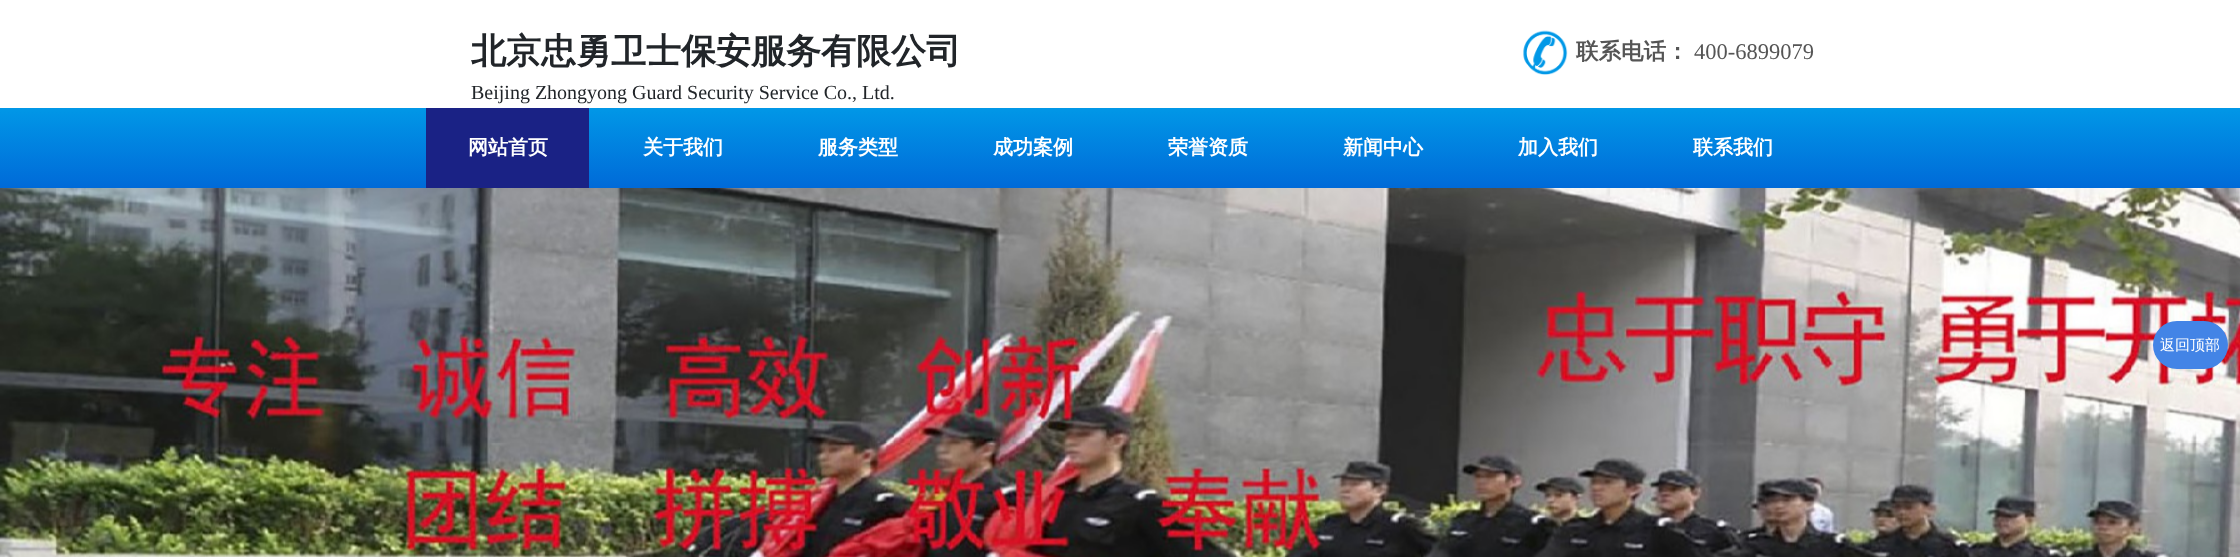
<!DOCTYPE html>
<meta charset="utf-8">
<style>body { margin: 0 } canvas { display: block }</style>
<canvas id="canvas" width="2240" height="557"></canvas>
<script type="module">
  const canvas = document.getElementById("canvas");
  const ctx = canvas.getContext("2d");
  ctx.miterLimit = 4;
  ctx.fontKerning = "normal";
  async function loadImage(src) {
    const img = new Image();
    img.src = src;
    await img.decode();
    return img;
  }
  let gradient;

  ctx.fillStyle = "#ffffff";
  ctx.fillRect(0, 0, 2240, 557);
  ctx.font = "bold 35px WenQuanYi Zen Hei";
  ctx.fillStyle = "#212529";
  ctx.fillText("北京忠勇卫士保安服务有限公司", 471, 63);
  ctx.font = "20px Liberation Serif";
  ctx.fillText("Beijing Zhongyong Guard Security Service Co., Ltd.", 471, 99);
  ctx.drawImage(await loadImage("img1.png"), 1523, 30, 45, 45);
  ctx.font = "bold 22.5px WenQuanYi Zen Hei";
  ctx.fillStyle = "#555555";
  ctx.fillText("联系电话：", 1576, 59);
  ctx.font = "22.5px Liberation Serif";
  ctx.fillText("400-6899079", 1694, 59);
  gradient = ctx.createLinearGradient(1120, 107, 1120, 188);
  gradient.addColorStop(0, "#0198e7");
  gradient.addColorStop(1, "#006ad8");
  ctx.fillStyle = gradient;
  ctx.fillRect(0, 108, 2240, 80);
  ctx.fillStyle = "#1a2285";
  ctx.fillRect(426, 108, 163, 80);
  ctx.font = "bold 20px WenQuanYi Zen Hei";
  ctx.fillStyle = "#ffffff";
  ctx.fillText("网站首页", 468, 154);
  ctx.fillText("关于我们", 643, 154);
  ctx.fillText("服务类型", 818, 154);
  ctx.fillText("成功案例", 993, 154);
  ctx.fillText("荣誉资质", 1168, 154);
  ctx.fillText("新闻中心", 1343, 154);
  ctx.fillText("加入我们", 1518, 154);
  ctx.fillText("联系我们", 1693, 154);
  ctx.drawImage(await loadImage("img2.png"), 0, 188, 2240, 369);
  ctx.fillStyle = "#4384e6";
  ctx.beginPath();
  ctx.roundRect(2153, 321, 75, 48, 24);
  ctx.fill();
  ctx.font = "500 15px WenQuanYi Zen Hei";
  ctx.fillStyle = "#ffffff";
  ctx.fillText("返回顶部", 2160, 350);
</script>
